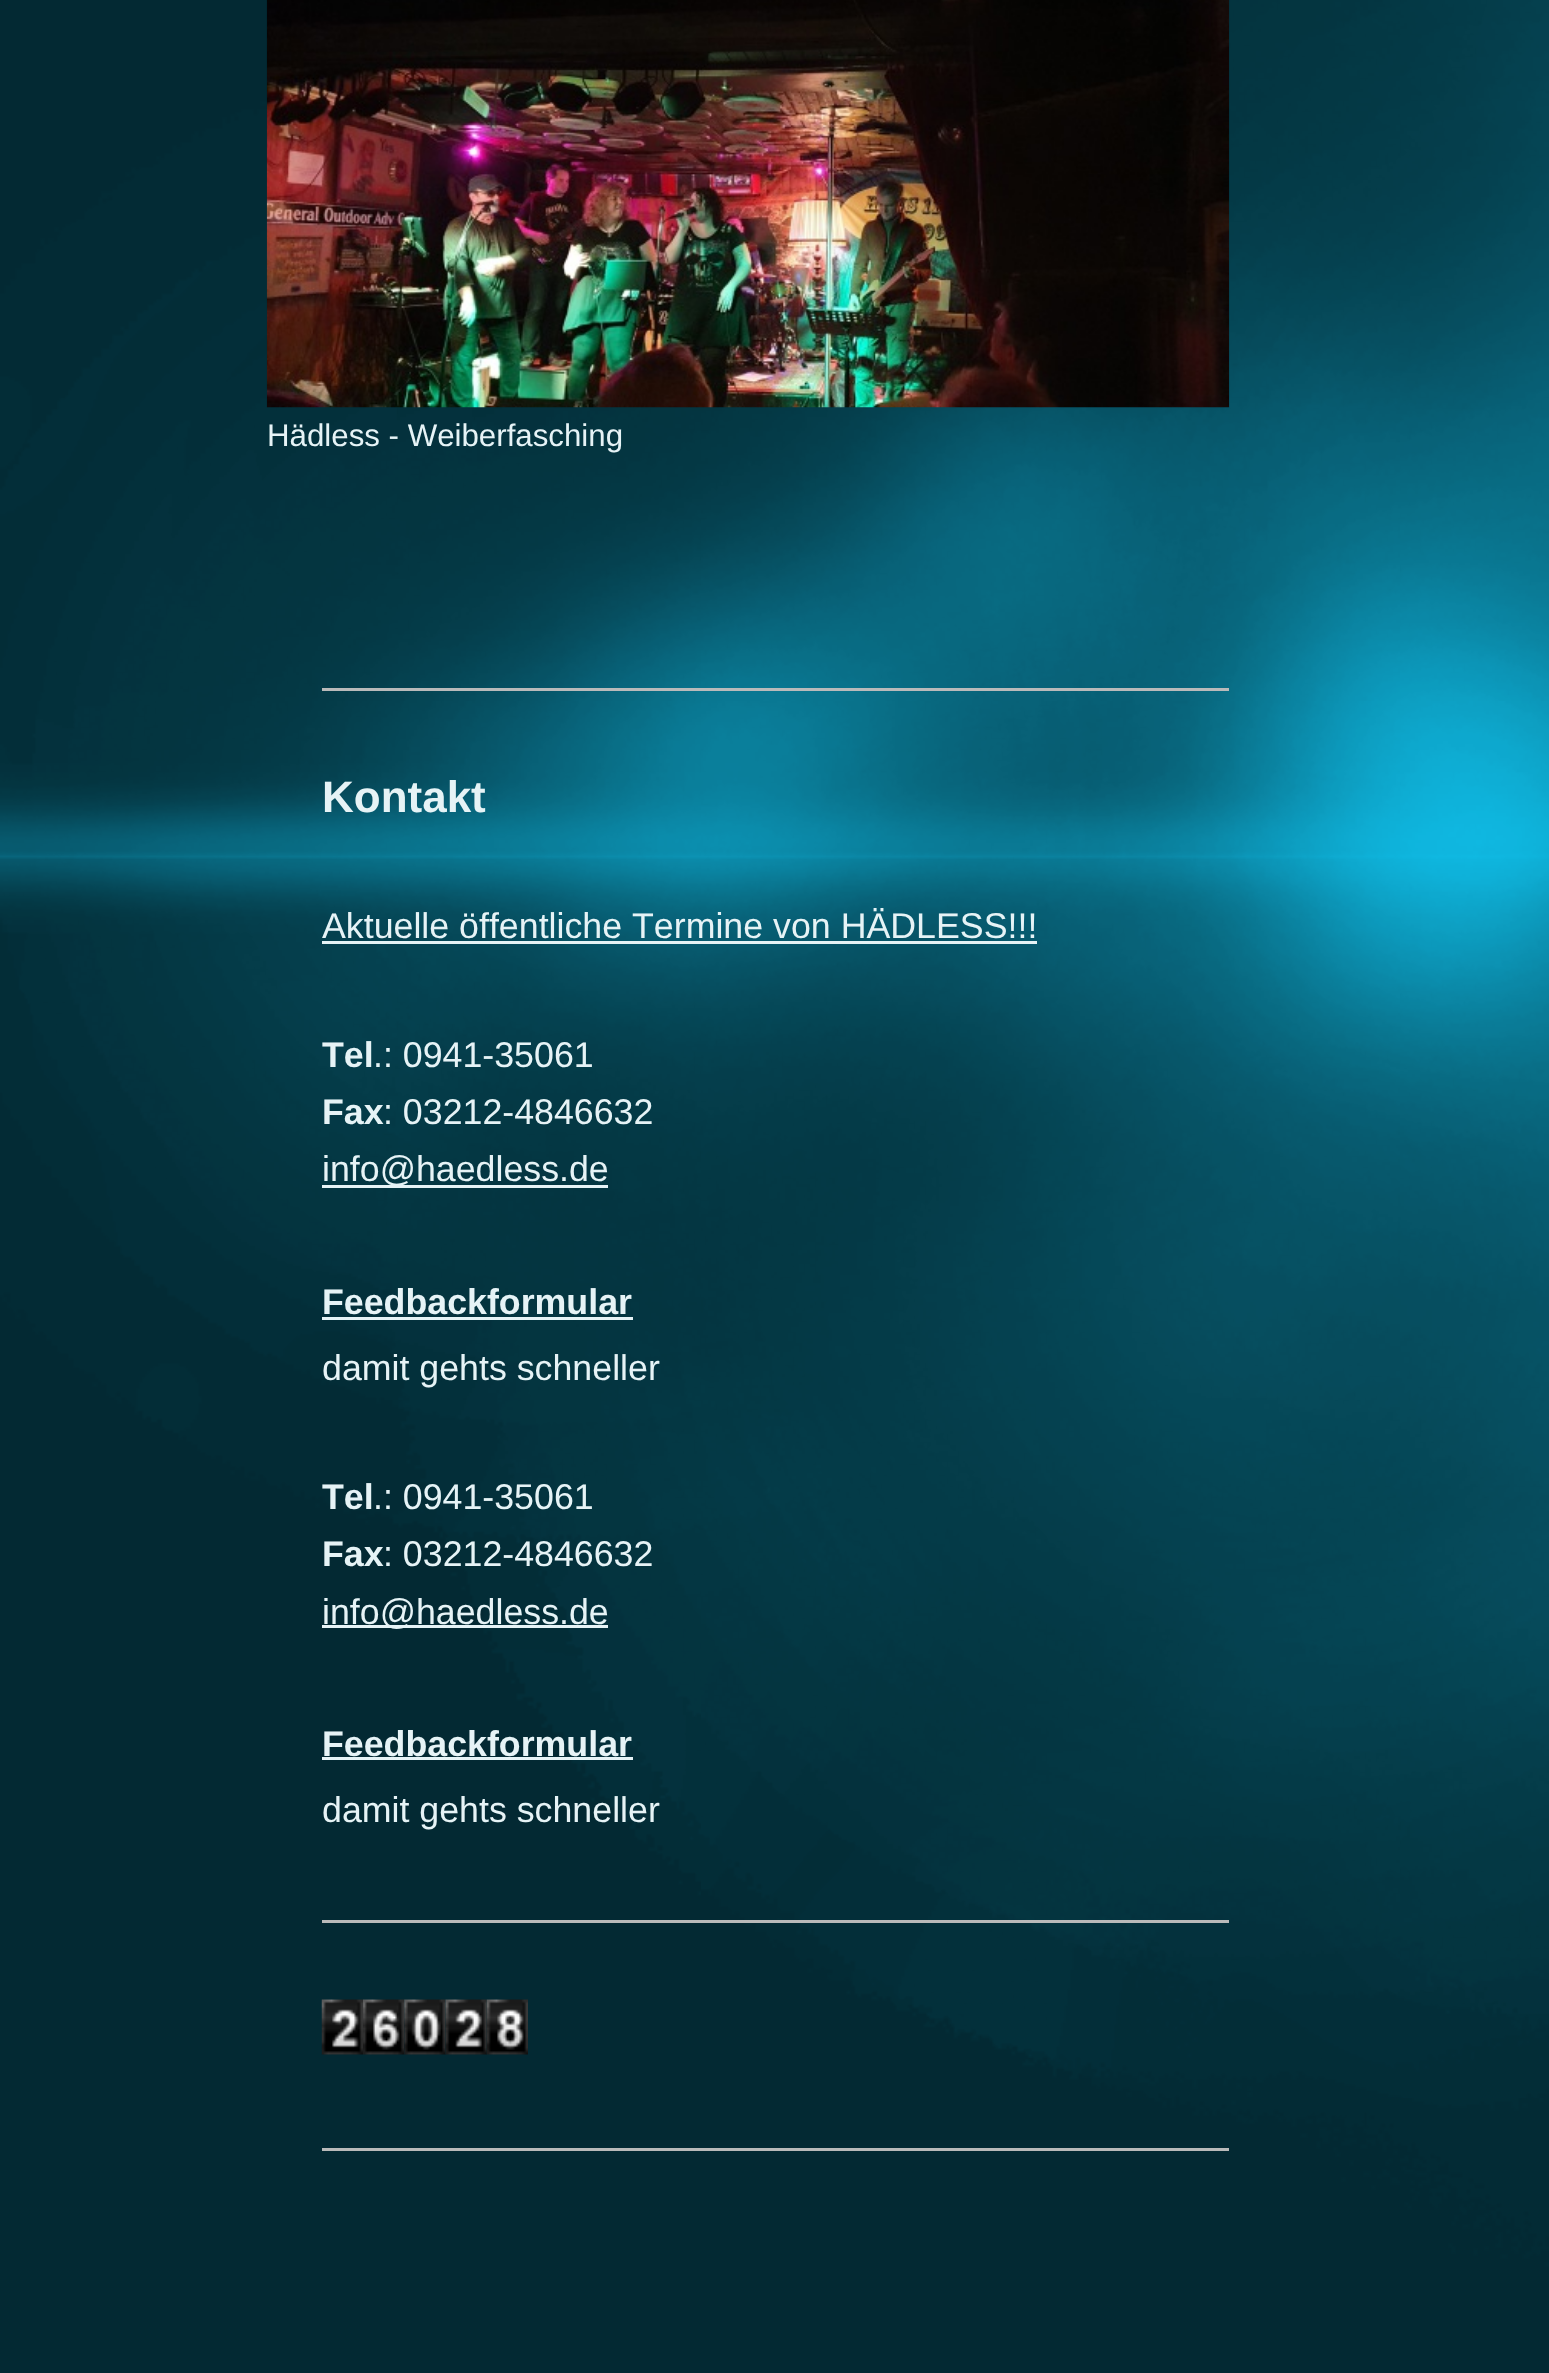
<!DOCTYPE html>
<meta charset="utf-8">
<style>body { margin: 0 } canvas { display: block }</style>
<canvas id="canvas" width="1549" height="2373"></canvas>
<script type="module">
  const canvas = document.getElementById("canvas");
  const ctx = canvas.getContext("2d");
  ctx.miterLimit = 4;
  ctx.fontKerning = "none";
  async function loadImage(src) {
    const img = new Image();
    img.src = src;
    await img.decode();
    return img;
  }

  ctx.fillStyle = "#11cefc";
  ctx.fillRect(0, 0, 1549, 2373);
  ctx.drawImage(await loadImage("img1.png"), 0, 0, 1549, 2373);
  ctx.drawImage(await loadImage("img2.png"), 266, 0, 964, 408);
  ctx.font = "31.25px Liberation Sans";
  ctx.fillStyle = "#e6f3f6";
  ctx.fillText("Hädless - Weiberfasching", 267, 446);
  ctx.fillStyle = "#bababa";
  ctx.fillRect(322, 688, 907, 3);
  ctx.font = "bold 44px Liberation Sans";
  ctx.fillStyle = "#e6f3f6";
  ctx.fillText("Kontakt", 322, 812);
  ctx.font = "35.75px Liberation Sans";
  ctx.fillText("Aktuelle öffentliche Termine von HÄDLESS!!!", 322, 938);
  ctx.fillRect(322, 941, 715, 3);
  ctx.font = "bold 35.75px Liberation Sans";
  ctx.fillText("Tel", 322, 1067);
  ctx.font = "35.75px Liberation Sans";
  ctx.fillText(".: 0941-35061", 373, 1067);
  ctx.font = "bold 35.75px Liberation Sans";
  ctx.fillText("Fax", 322, 1124);
  ctx.font = "35.75px Liberation Sans";
  ctx.fillText(": 03212-4846632", 383, 1124);
  ctx.fillRect(322, 1185, 286, 3);
  ctx.fillText("info@haedless.de", 322, 1181);
  ctx.font = "bold 35.75px Liberation Sans";
  ctx.fillText("Feedbackformular", 322, 1314);
  ctx.fillRect(322, 1317, 311, 3);
  ctx.font = "35.75px Liberation Sans";
  ctx.fillText("damit gehts schneller", 322, 1380);
  ctx.font = "bold 35.75px Liberation Sans";
  ctx.fillText("Tel", 322, 1509);
  ctx.font = "35.75px Liberation Sans";
  ctx.fillText(".: 0941-35061", 373, 1509);
  ctx.font = "bold 35.75px Liberation Sans";
  ctx.fillText("Fax", 322, 1566);
  ctx.font = "35.75px Liberation Sans";
  ctx.fillText(": 03212-4846632", 383, 1566);
  ctx.fillRect(322, 1625, 286, 3);
  ctx.fillText("info@haedless.de", 322, 1624);
  ctx.font = "bold 35.75px Liberation Sans";
  ctx.fillText("Feedbackformular", 322, 1756);
  ctx.fillRect(322, 1757, 311, 3);
  ctx.font = "35.75px Liberation Sans";
  ctx.fillText("damit gehts schneller", 322, 1822);
  ctx.fillStyle = "#bababa";
  ctx.fillRect(322, 1920, 907, 3);
  ctx.drawImage(await loadImage("img3.png"), 321, 1999, 42, 56);
  ctx.drawImage(await loadImage("img4.png"), 363, 1999, 42, 56);
  ctx.drawImage(await loadImage("img5.png"), 404, 1999, 42, 56);
  ctx.drawImage(await loadImage("img6.png"), 445, 1999, 42, 56);
  ctx.drawImage(await loadImage("img7.png"), 486, 1999, 42, 56);
  ctx.fillRect(322, 2148, 907, 3);
</script>
